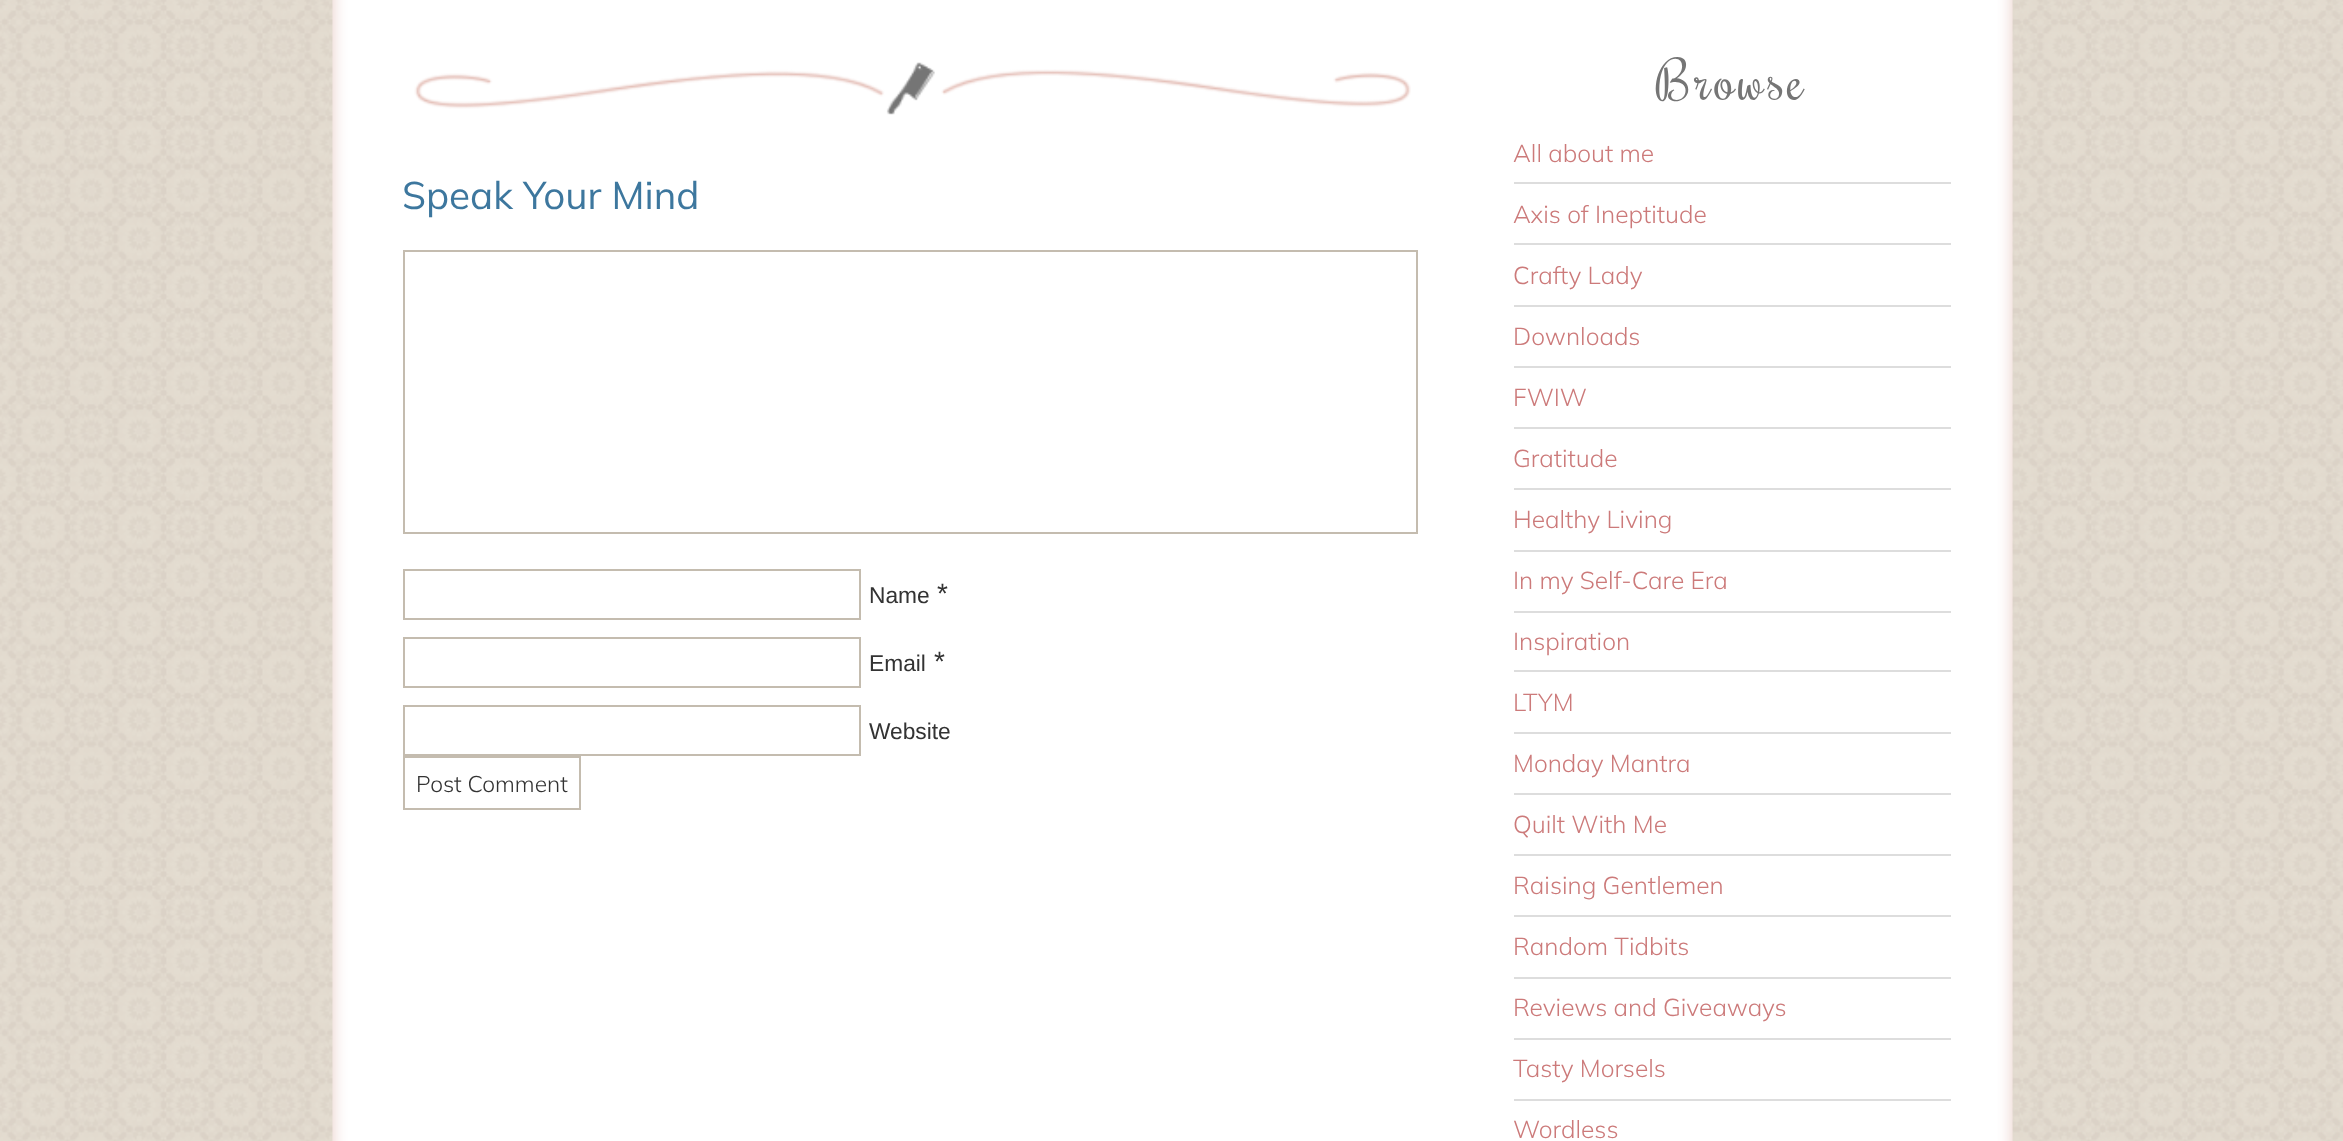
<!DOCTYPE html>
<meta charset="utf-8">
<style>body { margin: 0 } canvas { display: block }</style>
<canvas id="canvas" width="2343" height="1141"></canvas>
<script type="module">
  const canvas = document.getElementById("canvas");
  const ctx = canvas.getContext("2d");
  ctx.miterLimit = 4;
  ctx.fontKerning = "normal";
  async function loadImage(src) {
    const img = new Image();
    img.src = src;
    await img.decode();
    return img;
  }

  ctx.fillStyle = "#ffffff";
  ctx.fillRect(0, 0, 2343, 1141);
  ctx.drawImage(await loadImage("img1.png"), 0, 0, 2343, 1141);
  ctx.drawImage(await loadImage("img2.png"), 332, 0, 1681, 1141);
  ctx.drawImage(await loadImage("img3.png"), 414, 62, 997, 53);
  ctx.font = "38.5px Mulish";
  ctx.fillStyle = "#3d779e";
  ctx.fillText("Speak Your Mind", 402, 209);
  ctx.strokeStyle = "#c4bcaf";
  ctx.lineWidth = 2;
  ctx.strokeRect(404, 251, 1013, 282);
  ctx.strokeRect(404, 570, 456, 49);
  ctx.font = "22.75px Liberation Sans";
  ctx.fillStyle = "#333333";
  ctx.fillText("Name", 869, 603);
  ctx.font = "28px Liberation Sans";
  ctx.fillText("*", 937, 603);
  ctx.strokeRect(404, 638, 456, 49);
  ctx.font = "22.75px Liberation Sans";
  ctx.fillText("Email", 869, 671);
  ctx.font = "28px Liberation Sans";
  ctx.fillText("*", 934, 671);
  ctx.strokeRect(404, 706, 456, 49);
  ctx.font = "22.75px Liberation Sans";
  ctx.fillText("Website", 869, 739);
  ctx.strokeRect(404, 757, 176, 52);
  ctx.font = "300 22.75px Mulish";
  ctx.fillText("Post Comment", 416, 792);
  ctx.letterSpacing = "3.5px";
  ctx.font = "52.5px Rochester";
  ctx.fillStyle = "#757575";
  ctx.fillText("Browse", 1656, 100);
  ctx.fillStyle = "#dddddd";
  ctx.fillRect(1514, 182, 437, 2);
  ctx.letterSpacing = "0px";
  ctx.font = "300 24.5px Mulish";
  ctx.fillStyle = "#cc7a7a";
  ctx.fillText("All about me", 1513, 162);
  ctx.fillStyle = "#dddddd";
  ctx.fillRect(1514, 243, 437, 2);
  ctx.fillStyle = "#cc7a7a";
  ctx.fillText("Axis of Ineptitude", 1513, 223);
  ctx.fillStyle = "#dddddd";
  ctx.fillRect(1514, 305, 437, 2);
  ctx.fillStyle = "#cc7a7a";
  ctx.fillText("Crafty Lady", 1513, 284);
  ctx.fillStyle = "#dddddd";
  ctx.fillRect(1514, 366, 437, 2);
  ctx.fillStyle = "#cc7a7a";
  ctx.fillText("Downloads", 1513, 345);
  ctx.fillStyle = "#dddddd";
  ctx.fillRect(1514, 427, 437, 2);
  ctx.fillStyle = "#cc7a7a";
  ctx.fillText("FWIW", 1513, 406);
  ctx.fillStyle = "#dddddd";
  ctx.fillRect(1514, 488, 437, 2);
  ctx.fillStyle = "#cc7a7a";
  ctx.fillText("Gratitude", 1513, 467);
  ctx.fillStyle = "#dddddd";
  ctx.fillRect(1514, 550, 437, 2);
  ctx.fillStyle = "#cc7a7a";
  ctx.fillText("Healthy Living", 1513, 528);
  ctx.fillStyle = "#dddddd";
  ctx.fillRect(1514, 611, 437, 2);
  ctx.fillStyle = "#cc7a7a";
  ctx.fillText("In my Self-Care Era", 1513, 589);
  ctx.fillStyle = "#dddddd";
  ctx.fillRect(1514, 670, 437, 2);
  ctx.fillStyle = "#cc7a7a";
  ctx.fillText("Inspiration", 1513, 650);
  ctx.fillStyle = "#dddddd";
  ctx.fillRect(1514, 732, 437, 2);
  ctx.fillStyle = "#cc7a7a";
  ctx.fillText("LTYM", 1513, 711);
  ctx.fillStyle = "#dddddd";
  ctx.fillRect(1514, 793, 437, 2);
  ctx.fillStyle = "#cc7a7a";
  ctx.fillText("Monday Mantra", 1513, 772);
  ctx.fillStyle = "#dddddd";
  ctx.fillRect(1514, 854, 437, 2);
  ctx.fillStyle = "#cc7a7a";
  ctx.fillText("Quilt With Me", 1513, 833);
  ctx.fillStyle = "#dddddd";
  ctx.fillRect(1514, 915, 437, 2);
  ctx.fillStyle = "#cc7a7a";
  ctx.fillText("Raising Gentlemen", 1513, 894);
  ctx.fillStyle = "#dddddd";
  ctx.fillRect(1514, 977, 437, 2);
  ctx.fillStyle = "#cc7a7a";
  ctx.fillText("Random Tidbits", 1513, 955);
  ctx.fillStyle = "#dddddd";
  ctx.fillRect(1514, 1038, 437, 2);
  ctx.fillStyle = "#cc7a7a";
  ctx.fillText("Reviews and Giveaways", 1513, 1016);
  ctx.fillStyle = "#dddddd";
  ctx.fillRect(1514, 1099, 437, 2);
  ctx.fillStyle = "#cc7a7a";
  ctx.fillText("Tasty Morsels", 1513, 1077);
  ctx.fillText("Wordless", 1513, 1138);
</script>
